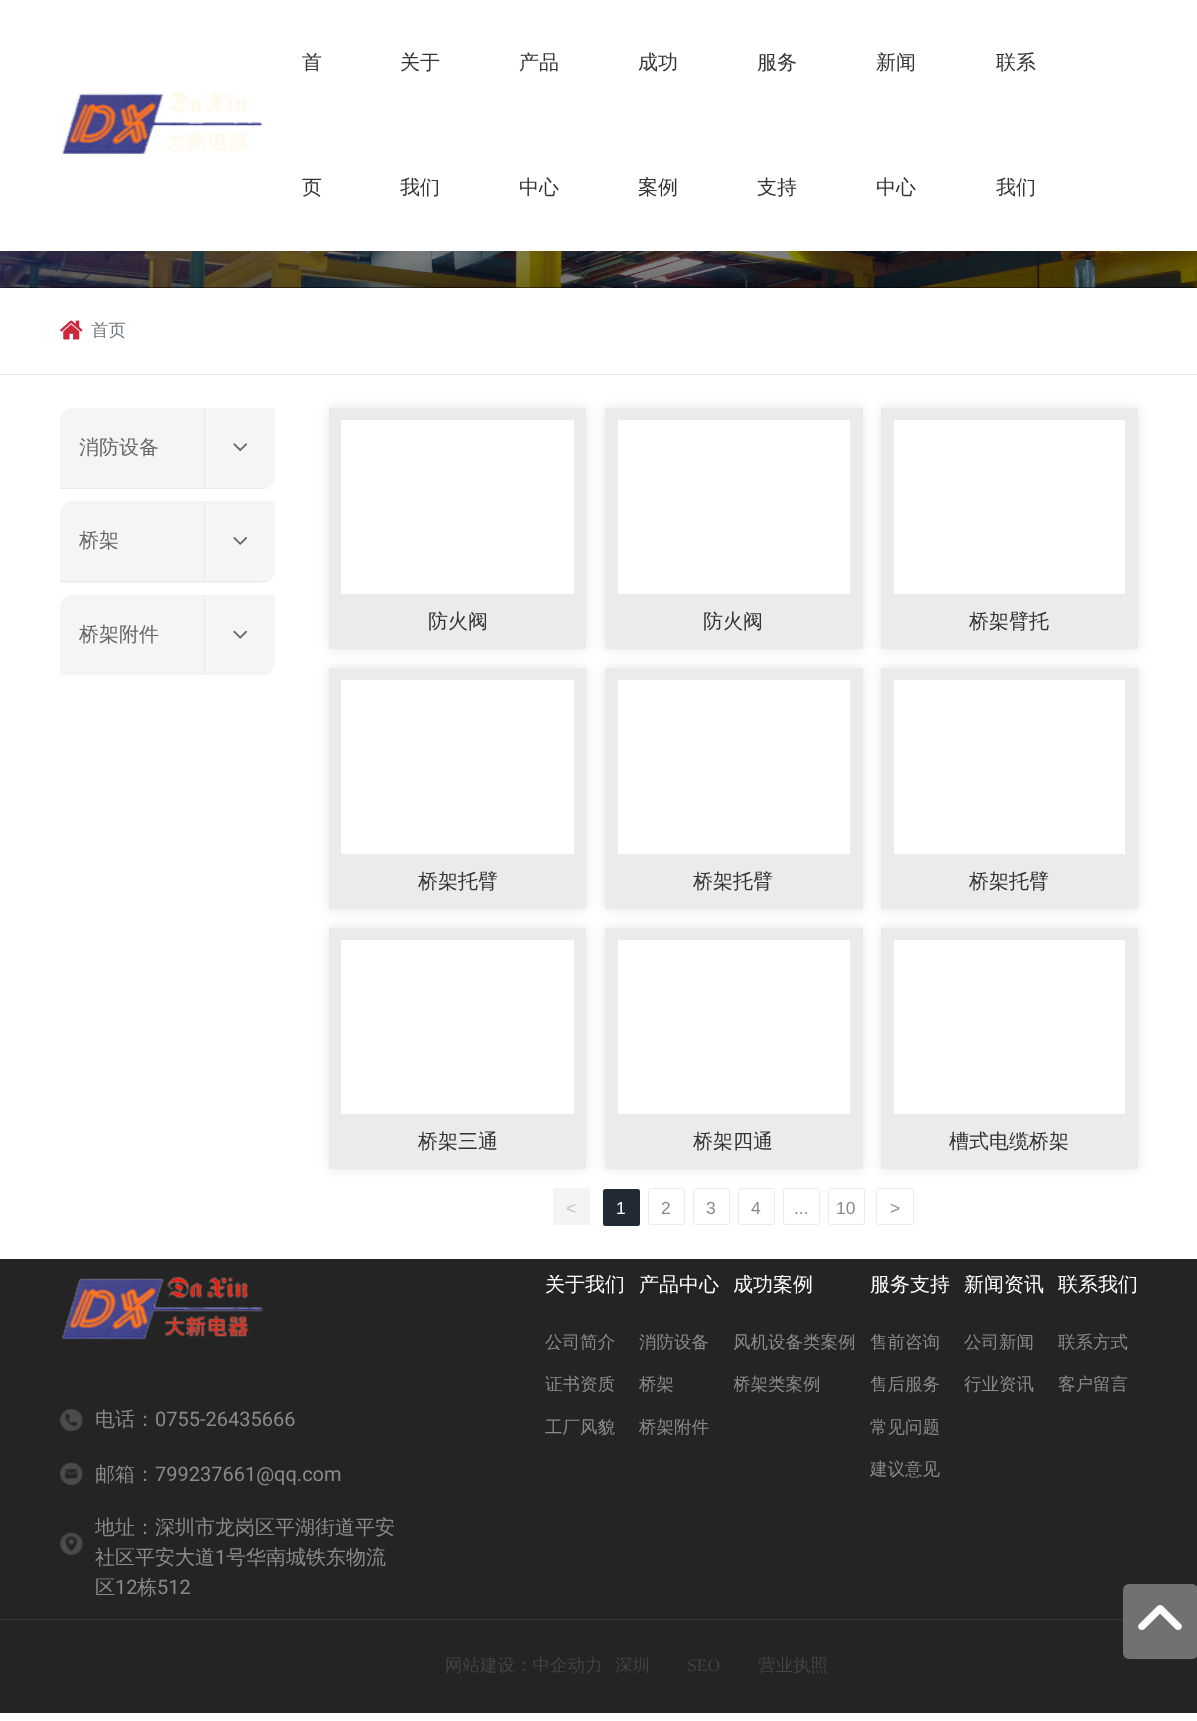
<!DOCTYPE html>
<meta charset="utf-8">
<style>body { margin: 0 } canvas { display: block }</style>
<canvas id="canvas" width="1197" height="1721"></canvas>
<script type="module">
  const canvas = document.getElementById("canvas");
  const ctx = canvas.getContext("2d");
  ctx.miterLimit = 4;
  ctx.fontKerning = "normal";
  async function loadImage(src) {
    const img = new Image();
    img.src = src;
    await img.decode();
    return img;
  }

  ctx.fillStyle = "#ffffff";
  ctx.fillRect(0, 0, 1197, 1721);
  ctx.fillStyle = "#000000";
  ctx.fillRect(0, 287, 1197, 1);
  ctx.drawImage(await loadImage("img2.png"), 0, 251, 1197, 37);
  ctx.fillStyle = "rgba(0, 0, 0, 0.1)";
  ctx.filter = "blur(6px)";
  ctx.beginPath();
  ctx.rect(0, 0, 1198, 251);
  ctx.fill();
  ctx.filter = "none";
  ctx.fillStyle = "#ffffff";
  ctx.fillRect(0, 0, 1197, 251);
  ctx.drawImage(await loadImage("img1.png"), 61, 92, 202, 62);
  ctx.font = "500 20px WenQuanYi Zen Hei";
  ctx.fillStyle = "#333333";
  ctx.fillText("首", 302, 69);
  ctx.fillText("页", 302, 194);
  ctx.fillText("关于", 400, 69);
  ctx.fillText("我们", 400, 194);
  ctx.fillText("产品", 519, 69);
  ctx.fillText("中心", 519, 194);
  ctx.fillText("成功", 638, 69);
  ctx.fillText("案例", 638, 194);
  ctx.fillText("服务", 757, 69);
  ctx.fillText("支持", 757, 194);
  ctx.fillText("新闻", 876, 69);
  ctx.fillText("中心", 876, 194);
  ctx.fillText("联系", 996, 69);
  ctx.fillText("我们", 996, 194);
  ctx.fillStyle = "#e6e6e6";
  ctx.fillRect(0, 374, 1197, 1);
  ctx.drawImage(await loadImage("img3.png"), 60, 320, 23, 20);
  ctx.font = "500 17.5px WenQuanYi Zen Hei";
  ctx.fillStyle = "#6c757d";
  ctx.fillText("首页", 91, 336);
  ctx.fillStyle = "#f5f5f5";
  ctx.beginPath();
  ctx.roundRect(60, 408, 215, 81, [13, 0, 13, 0]);
  ctx.fill();
  ctx.save();
  ctx.beginPath();
  ctx.roundRect(60, 408, 215, 81, [13, 0, 13, 0]);
  ctx.clip();
  ctx.fillStyle = "#ebebeb";
  ctx.fillRect(60, 488, 215, 1);
  ctx.restore();
  ctx.font = "500 20px WenQuanYi Zen Hei";
  ctx.fillStyle = "#666666";
  ctx.fillText("消防设备", 79, 454);
  ctx.fillStyle = "#e9e9e9";
  ctx.fillRect(204, 408, 1, 80);
  ctx.drawImage(await loadImage("img4.png"), 233, 443, 14, 8);
  ctx.fillStyle = "#f5f5f5";
  ctx.beginPath();
  ctx.roundRect(60, 501, 215, 82, [13, 0, 13, 0]);
  ctx.fill();
  ctx.save();
  ctx.beginPath();
  ctx.roundRect(60, 501, 215, 82, [13, 0, 13, 0]);
  ctx.clip();
  ctx.fillStyle = "#ebebeb";
  ctx.fillRect(60, 581, 215, 1);
  ctx.restore();
  ctx.fillStyle = "#666666";
  ctx.fillText("桥架", 79, 547);
  ctx.fillStyle = "#e9e9e9";
  ctx.fillRect(204, 501, 1, 80);
  ctx.drawImage(await loadImage("img5.png"), 233, 537, 14, 8);
  ctx.fillStyle = "#f5f5f5";
  ctx.beginPath();
  ctx.roundRect(60, 595, 215, 80, [13, 0, 13, 0]);
  ctx.fill();
  ctx.fillStyle = "#666666";
  ctx.fillText("桥架附件", 79, 641);
  ctx.fillStyle = "#e9e9e9";
  ctx.fillRect(204, 595, 1, 80);
  ctx.drawImage(await loadImage("img6.png"), 233, 630, 14, 9);
  ctx.fillStyle = "rgba(0, 0, 0, 0.1)";
  ctx.filter = "blur(6px)";
  ctx.beginPath();
  ctx.rect(329, 408, 257, 241);
  ctx.fill();
  ctx.filter = "none";
  ctx.fillStyle = "#ebebeb";
  ctx.fillRect(329, 408, 257, 241);
  ctx.fillStyle = "#ffffff";
  ctx.fillRect(341, 420, 233, 174);
  ctx.fillStyle = "#333333";
  ctx.fillText("防火阀", 428, 628);
  ctx.fillStyle = "rgba(0, 0, 0, 0.1)";
  ctx.filter = "blur(6px)";
  ctx.beginPath();
  ctx.rect(605, 408, 258, 241);
  ctx.fill();
  ctx.filter = "none";
  ctx.fillStyle = "#ebebeb";
  ctx.fillRect(605, 408, 258, 241);
  ctx.fillStyle = "#ffffff";
  ctx.fillRect(618, 420, 232, 174);
  ctx.fillStyle = "#333333";
  ctx.fillText("防火阀", 703, 628);
  ctx.fillStyle = "rgba(0, 0, 0, 0.1)";
  ctx.filter = "blur(6px)";
  ctx.beginPath();
  ctx.rect(881, 408, 257, 241);
  ctx.fill();
  ctx.filter = "none";
  ctx.fillStyle = "#ebebeb";
  ctx.fillRect(881, 408, 257, 241);
  ctx.fillStyle = "#ffffff";
  ctx.fillRect(894, 420, 231, 174);
  ctx.fillStyle = "#333333";
  ctx.fillText("桥架臂托", 969, 628);
  ctx.fillStyle = "rgba(0, 0, 0, 0.1)";
  ctx.filter = "blur(6px)";
  ctx.beginPath();
  ctx.rect(329, 668, 257, 241);
  ctx.fill();
  ctx.filter = "none";
  ctx.fillStyle = "#ebebeb";
  ctx.fillRect(329, 668, 257, 241);
  ctx.fillStyle = "#ffffff";
  ctx.fillRect(341, 680, 233, 174);
  ctx.fillStyle = "#333333";
  ctx.fillText("桥架托臂", 418, 888);
  ctx.fillStyle = "rgba(0, 0, 0, 0.1)";
  ctx.filter = "blur(6px)";
  ctx.beginPath();
  ctx.rect(605, 668, 258, 241);
  ctx.fill();
  ctx.filter = "none";
  ctx.fillStyle = "#ebebeb";
  ctx.fillRect(605, 668, 258, 241);
  ctx.fillStyle = "#ffffff";
  ctx.fillRect(618, 680, 232, 174);
  ctx.fillStyle = "#333333";
  ctx.fillText("桥架托臂", 693, 888);
  ctx.fillStyle = "rgba(0, 0, 0, 0.1)";
  ctx.filter = "blur(6px)";
  ctx.beginPath();
  ctx.rect(881, 668, 257, 241);
  ctx.fill();
  ctx.filter = "none";
  ctx.fillStyle = "#ebebeb";
  ctx.fillRect(881, 668, 257, 241);
  ctx.fillStyle = "#ffffff";
  ctx.fillRect(894, 680, 231, 174);
  ctx.fillStyle = "#333333";
  ctx.fillText("桥架托臂", 969, 888);
  ctx.fillStyle = "rgba(0, 0, 0, 0.1)";
  ctx.filter = "blur(6px)";
  ctx.beginPath();
  ctx.rect(329, 928, 257, 241);
  ctx.fill();
  ctx.filter = "none";
  ctx.fillStyle = "#ebebeb";
  ctx.fillRect(329, 928, 257, 241);
  ctx.fillStyle = "#ffffff";
  ctx.fillRect(341, 940, 233, 174);
  ctx.fillStyle = "#333333";
  ctx.fillText("桥架三通", 418, 1148);
  ctx.fillStyle = "rgba(0, 0, 0, 0.1)";
  ctx.filter = "blur(6px)";
  ctx.beginPath();
  ctx.rect(605, 928, 258, 241);
  ctx.fill();
  ctx.filter = "none";
  ctx.fillStyle = "#ebebeb";
  ctx.fillRect(605, 928, 258, 241);
  ctx.fillStyle = "#ffffff";
  ctx.fillRect(618, 940, 232, 174);
  ctx.fillStyle = "#333333";
  ctx.fillText("桥架四通", 693, 1148);
  ctx.fillStyle = "rgba(0, 0, 0, 0.1)";
  ctx.filter = "blur(6px)";
  ctx.beginPath();
  ctx.rect(881, 928, 257, 241);
  ctx.fill();
  ctx.filter = "none";
  ctx.fillStyle = "#ebebeb";
  ctx.fillRect(881, 928, 257, 241);
  ctx.fillStyle = "#ffffff";
  ctx.fillRect(894, 940, 231, 174);
  ctx.fillStyle = "#333333";
  ctx.fillText("槽式电缆桥架", 949, 1148);
  ctx.fillStyle = "#f4f4f5";
  ctx.beginPath();
  ctx.roundRect(553, 1188, 37, 37, 2.5);
  ctx.fill();
  ctx.font = "17.5px Liberation Sans";
  ctx.fillStyle = "#c0c4cc";
  ctx.fillText("<", 566, 1214);
  ctx.fillStyle = "#222a35";
  ctx.beginPath();
  ctx.roundRect(603, 1189, 37, 37, 2.5);
  ctx.fill();
  ctx.fillStyle = "#ffffff";
  ctx.fillText("1", 616, 1214);
  ctx.beginPath();
  ctx.roundRect(648.5, 1188.5, 36, 36, 2);
  ctx.strokeStyle = "#ebebeb";
  ctx.stroke();
  ctx.fillStyle = "#8a8a8a";
  ctx.fillText("2", 661, 1214);
  ctx.beginPath();
  ctx.roundRect(693.5, 1188.5, 36, 36, 2);
  ctx.stroke();
  ctx.fillText("3", 706, 1214);
  ctx.beginPath();
  ctx.roundRect(738.5, 1188.5, 36, 36, 2);
  ctx.stroke();
  ctx.fillText("4", 751, 1214);
  ctx.beginPath();
  ctx.roundRect(783.5, 1188.5, 36, 36, 2);
  ctx.stroke();
  ctx.fillText("...", 794, 1214);
  ctx.beginPath();
  ctx.roundRect(828.5, 1188.5, 36, 36, 2);
  ctx.stroke();
  ctx.fillText("10", 836, 1214);
  ctx.beginPath();
  ctx.roundRect(876.5, 1188.5, 37, 36, 2);
  ctx.stroke();
  ctx.fillText(">", 890, 1214);
  ctx.fillStyle = "#242424";
  ctx.fillRect(0, 1259, 1197, 454);
  ctx.fillStyle = "#3a3a3a";
  ctx.fillRect(0, 1619, 1123, 1);
  ctx.save();
  ctx.beginPath();
  ctx.rect(545, 1275, 80, 20);
  ctx.clip();
  ctx.font = "500 20px WenQuanYi Zen Hei";
  ctx.fillStyle = "#ffffff";
  ctx.fillText("关于我们", 545, 1291);
  ctx.restore();
  ctx.save();
  ctx.beginPath();
  ctx.rect(545, 1333, 80, 17);
  ctx.clip();
  ctx.font = "500 17.5px WenQuanYi Zen Hei";
  ctx.fillStyle = "#8a8a8a";
  ctx.fillText("公司简介", 545, 1348);
  ctx.restore();
  ctx.font = "500 17.5px WenQuanYi Zen Hei";
  ctx.fillStyle = "#8a8a8a";
  ctx.fillText("证书资质", 545, 1390);
  ctx.fillText("工厂风貌", 545, 1433);
  ctx.save();
  ctx.beginPath();
  ctx.rect(639, 1275, 80, 20);
  ctx.clip();
  ctx.font = "500 20px WenQuanYi Zen Hei";
  ctx.fillStyle = "#ffffff";
  ctx.fillText("产品中心", 639, 1291);
  ctx.restore();
  ctx.save();
  ctx.beginPath();
  ctx.rect(639, 1333, 80, 17);
  ctx.clip();
  ctx.fillText("消防设备", 639, 1348);
  ctx.restore();
  ctx.fillText("桥架", 639, 1390);
  ctx.save();
  ctx.beginPath();
  ctx.rect(639, 1418, 80, 17);
  ctx.clip();
  ctx.fillText("桥架附件", 639, 1433);
  ctx.restore();
  ctx.save();
  ctx.beginPath();
  ctx.rect(734, 1275, 122, 20);
  ctx.clip();
  ctx.font = "500 20px WenQuanYi Zen Hei";
  ctx.fillStyle = "#ffffff";
  ctx.fillText("成功案例", 733, 1291);
  ctx.restore();
  ctx.save();
  ctx.beginPath();
  ctx.rect(734, 1333, 122, 17);
  ctx.clip();
  ctx.fillText("风机设备类案例", 733, 1348);
  ctx.restore();
  ctx.save();
  ctx.beginPath();
  ctx.rect(734, 1375, 122, 18);
  ctx.clip();
  ctx.fillText("桥架类案例", 733, 1390);
  ctx.restore();
  ctx.save();
  ctx.beginPath();
  ctx.rect(870, 1275, 80, 20);
  ctx.clip();
  ctx.font = "500 20px WenQuanYi Zen Hei";
  ctx.fillStyle = "#ffffff";
  ctx.fillText("服务支持", 870, 1291);
  ctx.restore();
  ctx.save();
  ctx.beginPath();
  ctx.rect(870, 1333, 80, 17);
  ctx.clip();
  ctx.fillText("售前咨询", 870, 1348);
  ctx.restore();
  ctx.fillText("售后服务", 870, 1390);
  ctx.save();
  ctx.beginPath();
  ctx.rect(870, 1418, 80, 17);
  ctx.clip();
  ctx.fillText("常见问题", 870, 1433);
  ctx.restore();
  ctx.fillText("建议意见", 870, 1475);
  ctx.save();
  ctx.beginPath();
  ctx.rect(964, 1275, 80, 20);
  ctx.clip();
  ctx.font = "500 20px WenQuanYi Zen Hei";
  ctx.fillStyle = "#ffffff";
  ctx.fillText("新闻资讯", 964, 1291);
  ctx.restore();
  ctx.save();
  ctx.beginPath();
  ctx.rect(964, 1333, 80, 17);
  ctx.clip();
  ctx.fillText("公司新闻", 964, 1348);
  ctx.restore();
  ctx.fillText("行业资讯", 964, 1390);
  ctx.save();
  ctx.beginPath();
  ctx.rect(1058, 1275, 80, 20);
  ctx.clip();
  ctx.font = "500 20px WenQuanYi Zen Hei";
  ctx.fillStyle = "#ffffff";
  ctx.fillText("联系我们", 1058, 1291);
  ctx.restore();
  ctx.save();
  ctx.beginPath();
  ctx.rect(1058, 1333, 80, 17);
  ctx.clip();
  ctx.fillText("联系方式", 1058, 1348);
  ctx.restore();
  ctx.fillText("客户留言", 1058, 1390);
  ctx.drawImage(await loadImage("img7.png"), 62, 1276, 201, 64);
  ctx.drawImage(await loadImage("img8.png"), 60, 1409, 23, 22);
  ctx.font = "500 20px WenQuanYi Zen Hei";
  ctx.fillText("电话：", 95, 1426);
  ctx.font = "20px Roboto";
  ctx.fillText("0755-26435666", 155, 1426);
  ctx.drawImage(await loadImage("img9.png"), 60, 1462, 23, 23);
  ctx.font = "500 20px WenQuanYi Zen Hei";
  ctx.fillText("邮箱：", 95, 1481);
  ctx.font = "20px Roboto";
  ctx.fillText("799237661@qq.com", 155, 1481);
  ctx.drawImage(await loadImage("img10.png"), 60, 1532, 23, 23);
  ctx.font = "500 20px WenQuanYi Zen Hei";
  ctx.fillText("地址：深圳市龙岗区平湖街道平安", 95, 1534);
  ctx.fillText("社区平安大道", 95, 1564);
  ctx.font = "20px Roboto";
  ctx.fillText("1", 215, 1564);
  ctx.font = "500 20px WenQuanYi Zen Hei";
  ctx.fillText("号华南城铁东物流", 226, 1564);
  ctx.fillText("区", 95, 1594);
  ctx.font = "20px Roboto";
  ctx.fillText("12", 115, 1594);
  ctx.font = "500 20px WenQuanYi Zen Hei";
  ctx.fillText("栋", 137, 1594);
  ctx.font = "20px Roboto";
  ctx.fillText("512", 157, 1594);
  ctx.fillStyle = "#717171";
  ctx.beginPath();
  ctx.roundRect(1123, 1584, 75, 75, 6);
  ctx.fill();
  ctx.drawImage(await loadImage("img11.png"), 1138, 1605, 44, 25);
  ctx.font = "500 17.5px WenQuanYi Zen Hei";
  ctx.fillStyle = "#434343";
  ctx.fillText("网站建设：中企动力", 445, 1671);
  ctx.fillText("深圳", 615, 1671);
  ctx.font = "17.5px Liberation Serif";
  ctx.fillText("SEO", 687, 1671);
  ctx.font = "500 17.5px WenQuanYi Zen Hei";
  ctx.fillText("营业执照", 758, 1671);
</script>
